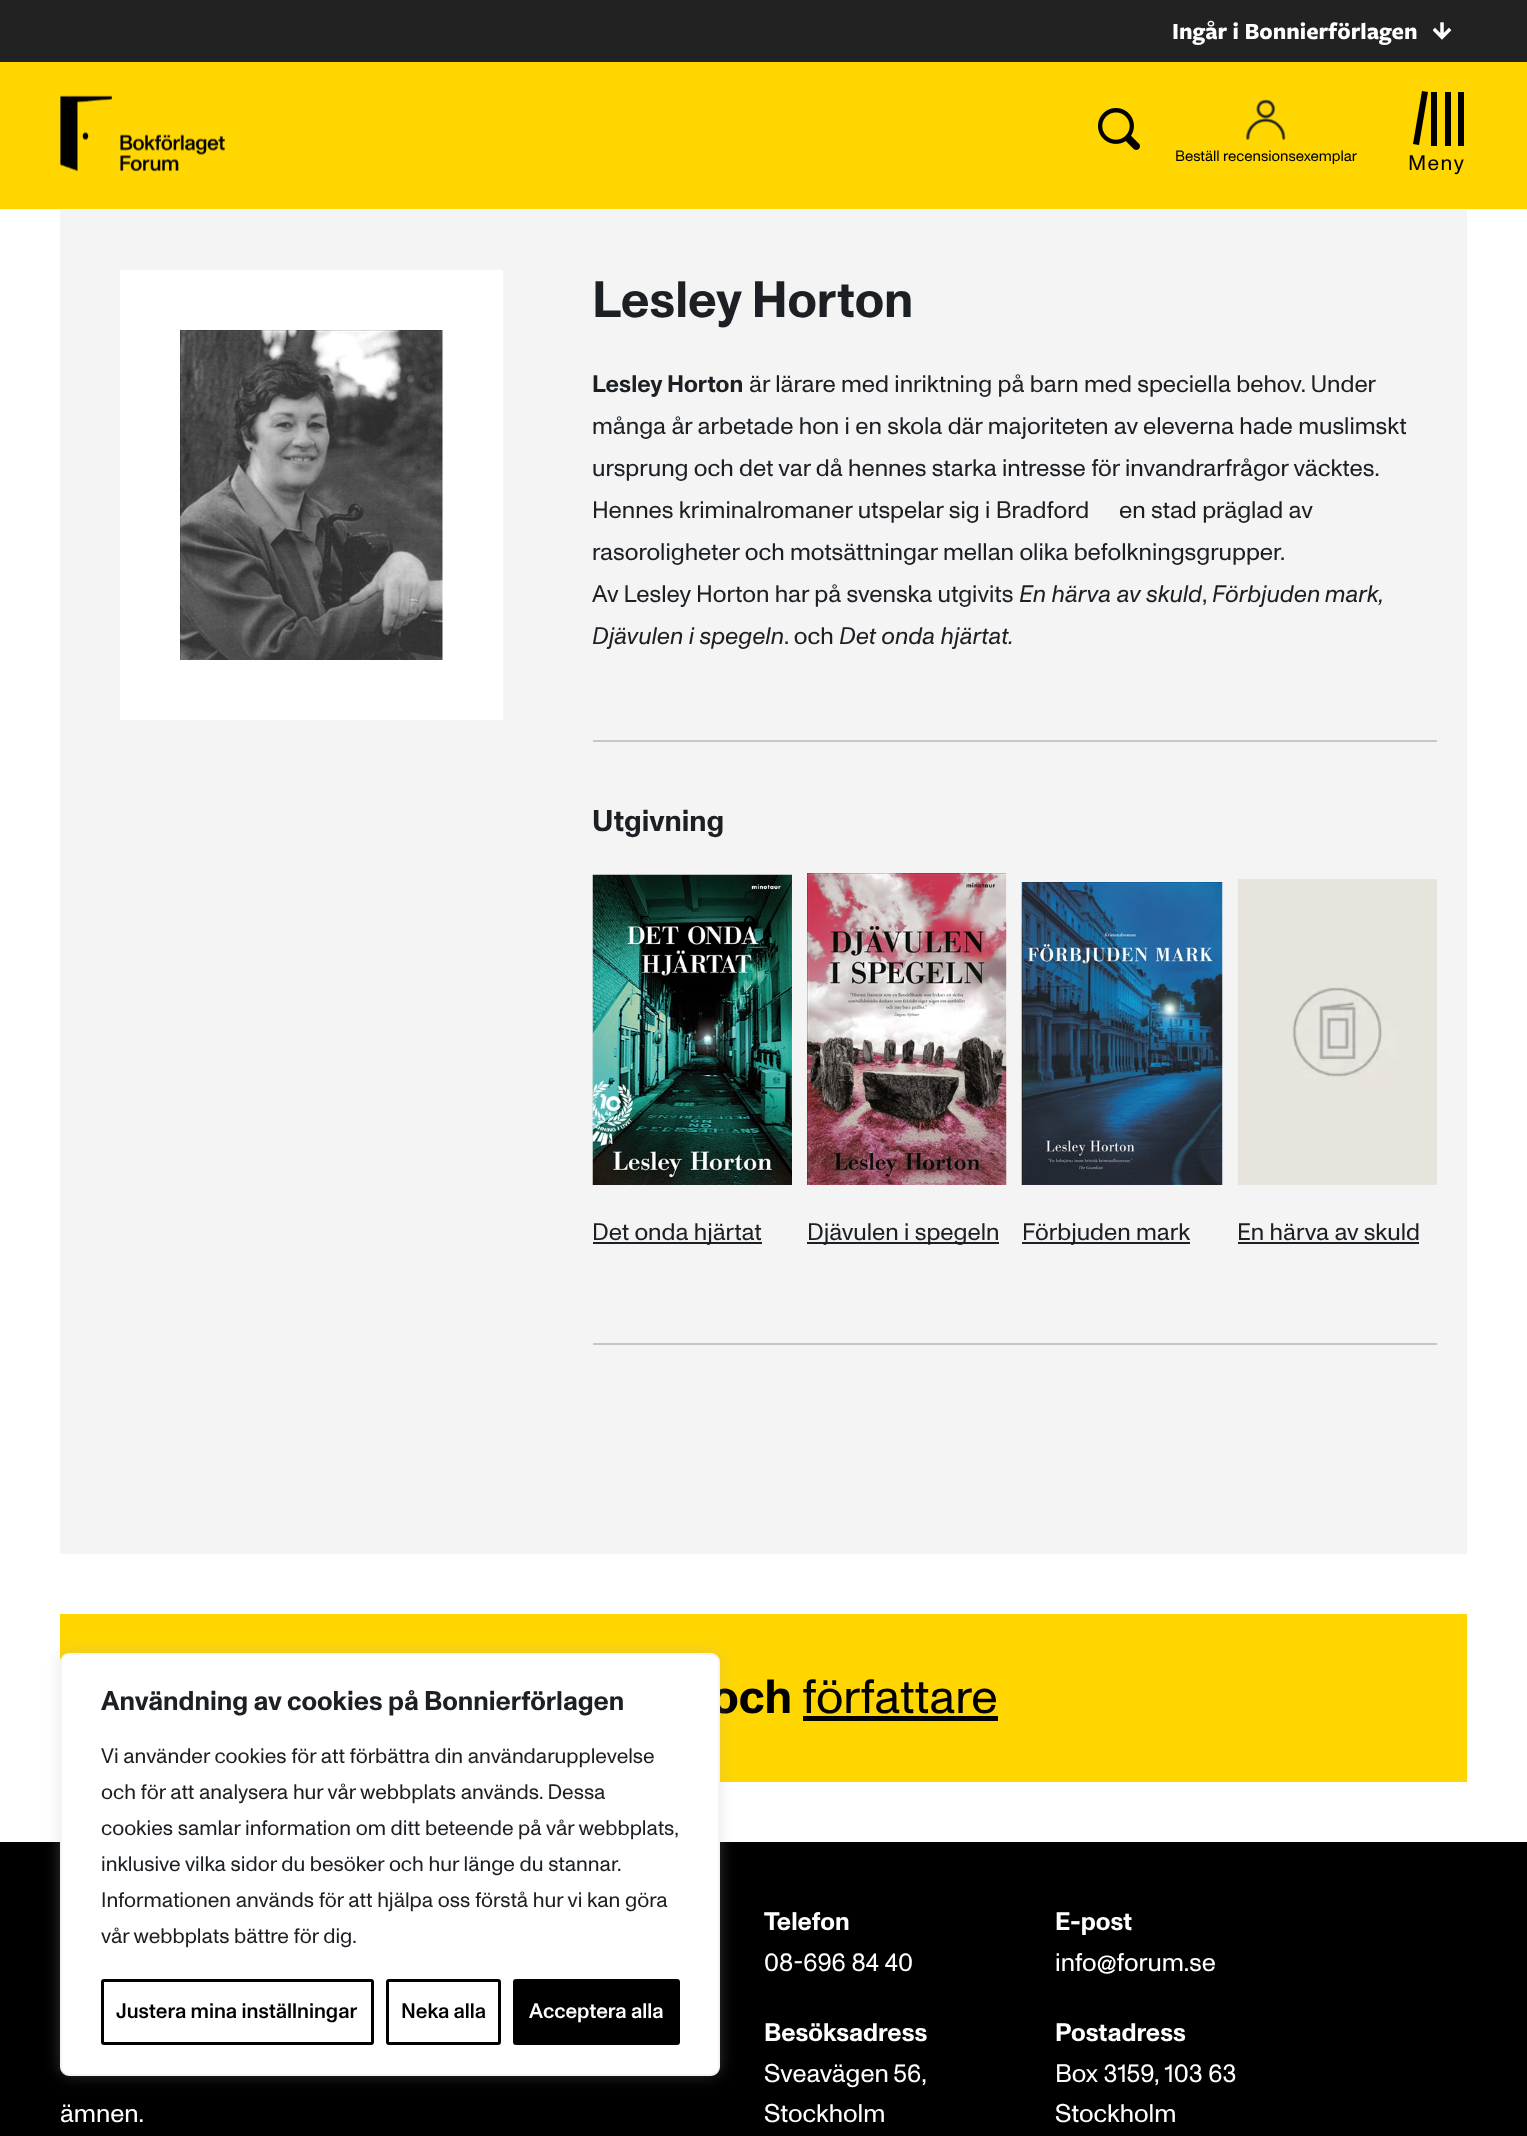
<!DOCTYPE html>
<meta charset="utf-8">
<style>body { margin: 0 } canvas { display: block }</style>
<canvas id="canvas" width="1527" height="2136"></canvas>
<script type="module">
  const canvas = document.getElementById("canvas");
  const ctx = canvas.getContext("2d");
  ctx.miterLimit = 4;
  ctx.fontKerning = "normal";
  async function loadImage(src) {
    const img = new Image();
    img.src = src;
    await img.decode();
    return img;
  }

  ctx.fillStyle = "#ffffff";
  ctx.fillRect(0, 0, 1527, 2136);
  ctx.fillStyle = "#222222";
  ctx.fillRect(0, 0, 1527, 62);
  ctx.font = "bold 24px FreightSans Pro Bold";
  ctx.fillStyle = "#ffffff";
  ctx.fillText("Ingår i Bonnierförlagen", 1172, 39);
  ctx.drawImage(await loadImage("img1.png"), 1433, 22, 19, 18);
  ctx.fillStyle = "#ffd600";
  ctx.fillRect(0, 62, 1527, 147);
  ctx.drawImage(await loadImage("img2.png"), 60, 95, 165, 77);
  ctx.drawImage(await loadImage("img3.png"), 1098, 108, 42, 42);
  ctx.drawImage(await loadImage("img4.png"), 1246, 99, 40, 41);
  ctx.font = "15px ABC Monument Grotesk";
  ctx.fillStyle = "#000000";
  ctx.fillText("Beställ recensionsexemplar", 1175, 161);
  ctx.beginPath();
  ctx.moveTo(1422, 91);
  ctx.lineTo(1428, 92);
  ctx.lineTo(1419, 145);
  ctx.lineTo(1413, 144);
  ctx.closePath();
  ctx.fill();
  ctx.fillRect(1431, 92, 6, 54);
  ctx.fillRect(1445, 92, 6, 54);
  ctx.fillRect(1458, 92, 6, 54);
  ctx.letterSpacing = "1.5px";
  ctx.font = "21px ABC Monument Grotesk";
  ctx.fillText("Meny", 1408, 170);
  ctx.fillStyle = "#f4f4f4";
  ctx.fillRect(60, 210, 1407, 1344);
  ctx.fillStyle = "#ffffff";
  ctx.fillRect(120, 270, 383, 450);
  ctx.drawImage(await loadImage("img5.png"), 180, 330, 263, 330);
  ctx.fillStyle = "#c7c7c7";
  ctx.fillRect(593, 740, 844, 2);
  ctx.letterSpacing = "0px";
  ctx.font = "bold 51px ABC Monument Grotesk";
  ctx.fillStyle = "#1c2024";
  ctx.fillText("Lesley Horton", 592, 317);
  ctx.font = "bold 24px ABC Monument Grotesk";
  ctx.fillText("Lesley Horton", 592, 392);
  ctx.font = "24px ABC Monument Grotesk";
  ctx.fillText("är lärare med inriktning på barn med speciella behov. Under", 749, 392);
  ctx.fillText("många år arbetade hon i en skola där majoriteten av eleverna hade muslimskt", 592, 434);
  ctx.fillText("ursprung och det var då hennes starka intresse för invandrarfrågor väcktes.", 592, 476);
  ctx.fillText("Hennes kriminalromaner utspelar sig i Bradford", 592, 518);
  ctx.fillText("en stad präglad av", 1119, 518);
  ctx.fillText("rasoroligheter och motsättningar mellan olika befolkningsgrupper.", 592, 560);
  ctx.fillText("Av Lesley Horton har på svenska utgivits", 592, 602);
  ctx.font = "italic 24px ABC Monument Grotesk";
  ctx.fillText("En härva av skuld", 1019, 602);
  ctx.font = "24px ABC Monument Grotesk";
  ctx.fillText(",", 1202, 602);
  ctx.wordSpacing = "-1px";
  ctx.font = "italic 24px ABC Monument Grotesk";
  ctx.fillText("Förbjuden mark,", 1212, 602);
  ctx.wordSpacing = "0px";
  ctx.fillText("Djävulen i spegeln", 592, 644);
  ctx.font = "24px ABC Monument Grotesk";
  ctx.fillText(". och", 784, 644);
  ctx.font = "italic 24px ABC Monument Grotesk";
  ctx.fillText("Det onda hjärtat.", 839, 644);
  ctx.fillStyle = "#c7c7c7";
  ctx.fillRect(593, 1343, 844, 2);
  ctx.font = "bold 30px ABC Monument Grotesk";
  ctx.fillStyle = "#1c2024";
  ctx.fillText("Utgivning", 592, 831);
  ctx.drawImage(await loadImage("img6.png"), 592, 874, 200, 311);
  ctx.fillRect(593, 1242, 169, 2);
  ctx.font = "24px ABC Monument Grotesk";
  ctx.fillText("Det onda hjärtat", 592, 1240);
  ctx.drawImage(await loadImage("img7.png"), 807, 873, 200, 312);
  ctx.fillRect(807, 1242, 192, 2);
  ctx.fillText("Djävulen i spegeln", 807, 1240);
  ctx.drawImage(await loadImage("img8.png"), 1021, 882, 202, 303);
  ctx.fillRect(1022, 1242, 168, 2);
  ctx.fillText("Förbjuden mark", 1022, 1240);
  ctx.drawImage(await loadImage("img9.png"), 1237, 879, 200, 306);
  ctx.fillText("En härva av skuld", 1237, 1240);
  ctx.fillRect(1238, 1242, 181, 2);
  ctx.fillStyle = "#ffd600";
  ctx.fillRect(60, 1614, 1407, 168);
  ctx.font = "bold 48px ABC Monument Grotesk";
  ctx.fillStyle = "#000000";
  ctx.fillText("och", 711, 1713);
  ctx.font = "48px ABC Monument Grotesk";
  ctx.fillText("författare", 802, 1713);
  ctx.fillRect(803, 1716, 195, 5);
  ctx.fillRect(0, 1842, 1527, 294);
  ctx.font = "25.5px ABC Monument Grotesk";
  ctx.fillStyle = "#ffffff";
  ctx.fillText("ämnen.", 60, 2122);
  ctx.font = "bold 25.5px ABC Monument Grotesk";
  ctx.fillText("Telefon", 764, 1930);
  ctx.font = "25.5px ABC Monument Grotesk";
  ctx.fillText("08-696 84 40", 764, 1971);
  ctx.font = "bold 25.5px ABC Monument Grotesk";
  ctx.fillText("E-post", 1055, 1930);
  ctx.font = "25.5px ABC Monument Grotesk";
  ctx.fillText("info@forum.se", 1055, 1971);
  ctx.font = "bold 25.5px ABC Monument Grotesk";
  ctx.fillText("Besöksadress", 764, 2041);
  ctx.wordSpacing = "-1px";
  ctx.font = "25.5px ABC Monument Grotesk";
  ctx.fillText("Sveavägen 56,", 764, 2082);
  ctx.wordSpacing = "0px";
  ctx.fillText("Stockholm", 764, 2122);
  ctx.font = "bold 25.5px ABC Monument Grotesk";
  ctx.fillText("Postadress", 1055, 2041);
  ctx.font = "25.5px ABC Monument Grotesk";
  ctx.fillText("Box 3159, 103 63", 1055, 2082);
  ctx.fillText("Stockholm", 1055, 2122);
  ctx.fillStyle = "rgba(172, 171, 171, 0.3)";
  ctx.filter = "blur(7.5px)";
  ctx.beginPath();
  ctx.roundRect(60, 1652, 660, 423, 9);
  ctx.fill();
  ctx.filter = "none";
  ctx.fillStyle = "#ffffff";
  ctx.beginPath();
  ctx.roundRect(61, 1654, 658, 421, 8);
  ctx.fill();
  ctx.strokeStyle = "#f4f4f4";
  ctx.lineWidth = 2;
  ctx.stroke();
  ctx.font = "bold 27px ABC Monument Grotesk";
  ctx.fillStyle = "#1c2024";
  ctx.fillText("Användning av cookies på Bonnierförlagen", 101, 1710);
  ctx.font = "21px ABC Monument Grotesk";
  ctx.fillText("Vi använder cookies för att förbättra din användarupplevelse", 101, 1763);
  ctx.fillText("och för att analysera hur vår webbplats används. Dessa", 101, 1799);
  ctx.fillText("cookies samlar information om ditt beteende på vår webbplats,", 101, 1835);
  ctx.fillText("inklusive vilka sidor du besöker och hur länge du stannar.", 101, 1871);
  ctx.fillText("Informationen används för att hjälpa oss förstå hur vi kan göra", 101, 1907);
  ctx.fillText("vår webbplats bättre för dig.", 101, 1943);
  ctx.beginPath();
  ctx.roundRect(102.5, 1980.5, 270, 63, 1.5);
  ctx.strokeStyle = "#000000";
  ctx.lineWidth = 3;
  ctx.stroke();
  ctx.font = "500 21px ABC Monument Grotesk";
  ctx.fillStyle = "#000000";
  ctx.fillText("Justera mina inställningar", 116, 2018);
  ctx.beginPath();
  ctx.roundRect(387.5, 1980.5, 112, 63, 1.5);
  ctx.stroke();
  ctx.fillText("Neka alla", 401, 2018);
  ctx.beginPath();
  ctx.roundRect(514.5, 1980.5, 164, 63, 1.5);
  ctx.fill();
  ctx.stroke();
  ctx.fillStyle = "#ffffff";
  ctx.fillText("Acceptera alla", 529, 2018);
</script>
